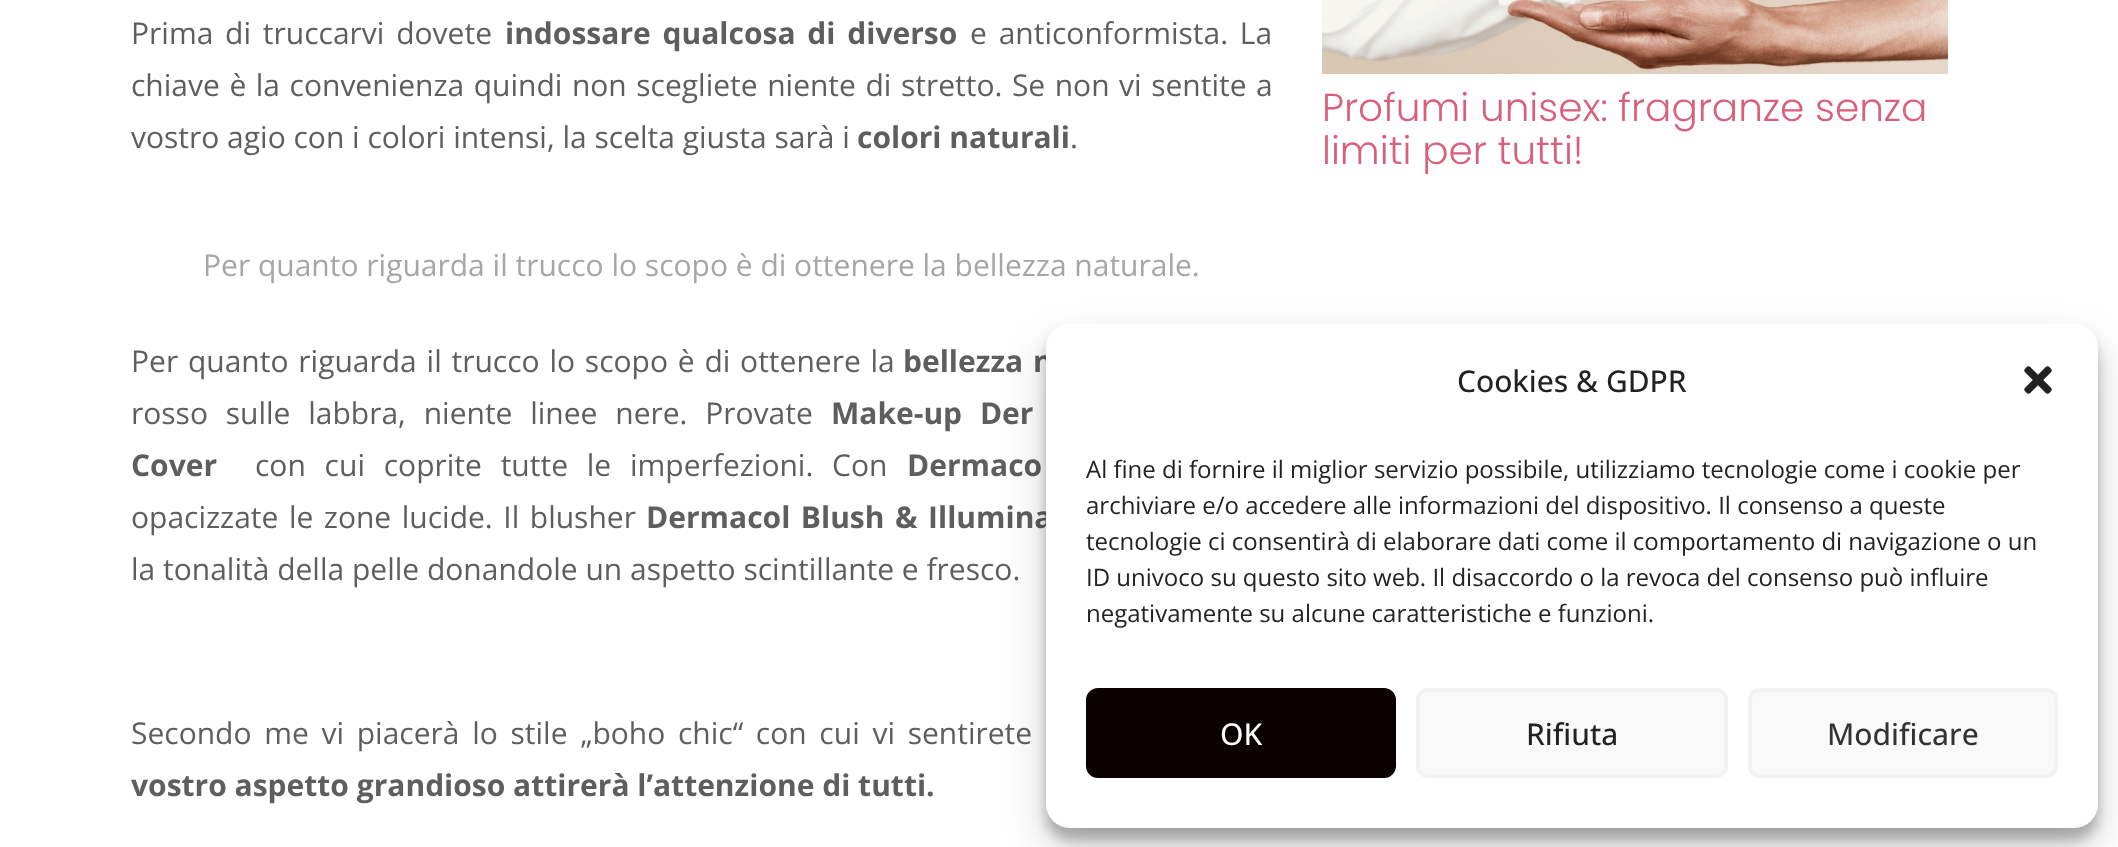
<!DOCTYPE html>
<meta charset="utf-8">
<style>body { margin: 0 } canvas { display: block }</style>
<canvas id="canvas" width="2118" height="847"></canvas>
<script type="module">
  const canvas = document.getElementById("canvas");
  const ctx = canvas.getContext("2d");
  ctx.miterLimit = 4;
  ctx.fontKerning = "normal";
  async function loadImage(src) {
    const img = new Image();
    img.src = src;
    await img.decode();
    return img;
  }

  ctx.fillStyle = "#ffffff";
  ctx.fillRect(0, 0, 2118, 847);
  ctx.wordSpacing = "4px";
  ctx.font = "30px Open Sans";
  ctx.fillStyle = "#5e5e5e";
  ctx.fillText("Prima di truccarvi dovete", 131, 44);
  ctx.font = "bold 30px Open Sans";
  ctx.fillText("indossare qualcosa di diverso", 505, 44);
  ctx.font = "30px Open Sans";
  ctx.fillText("e anticonformista. La", 970, 44);
  ctx.wordSpacing = "1.75px";
  ctx.fillText("chiave è la convenienza quindi non scegliete niente di stretto. Se non vi sentite a", 131, 96);
  ctx.wordSpacing = "0px";
  ctx.fillText("vostro agio con i colori intensi, la scelta giusta sarà i", 131, 148);
  ctx.font = "bold 30px Open Sans";
  ctx.fillText("colori naturali", 857, 148);
  ctx.font = "30px Open Sans";
  ctx.fillText(".", 1070, 148);
  ctx.fillStyle = "#a6a6a6";
  ctx.fillText("Per quanto riguarda il trucco lo scopo è di ottenere la bellezza naturale.", 203, 276);
  ctx.wordSpacing = "2px";
  ctx.fillStyle = "#5e5e5e";
  ctx.fillText("Per quanto riguarda il trucco lo scopo è di ottenere la", 131, 372);
  ctx.font = "bold 30px Open Sans";
  ctx.fillText("bellezza n", 903, 372);
  ctx.wordSpacing = "10px";
  ctx.font = "30px Open Sans";
  ctx.fillText("rosso sulle labbra, niente linee nere. Provate", 131, 424);
  ctx.font = "bold 30px Open Sans";
  ctx.fillText("Make-up Der", 831, 424);
  ctx.wordSpacing = "0px";
  ctx.fillText("Cover", 131, 476);
  ctx.wordSpacing = "11px";
  ctx.font = "30px Open Sans";
  ctx.fillText("con cui coprite tutte le imperfezioni. Con", 255, 476);
  ctx.font = "bold 30px Open Sans";
  ctx.fillText("Dermaco", 907, 476);
  ctx.wordSpacing = "2.75px";
  ctx.font = "30px Open Sans";
  ctx.fillText("opacizzate le zone lucide. Il blusher", 131, 528);
  ctx.font = "bold 30px Open Sans";
  ctx.fillText("Dermacol Blush & Illumina", 646, 528);
  ctx.wordSpacing = "0px";
  ctx.font = "30px Open Sans";
  ctx.fillText("la tonalità della pelle donandole un aspetto scintillante e fresco.", 131, 580);
  ctx.wordSpacing = "4.9px";
  ctx.fillText("Secondo me vi piacerà lo stile „boho chic“ con cui vi sentirete", 131, 744);
  ctx.wordSpacing = "0px";
  ctx.font = "bold 30px Open Sans";
  ctx.fillText("vostro aspetto grandioso attirerà l’attenzione di tutti.", 131, 796);
  ctx.drawImage(await loadImage("img1.png"), 1322, 0, 626, 74);
  ctx.font = "300 39px Poppins";
  ctx.fillStyle = "#d9607c";
  ctx.fillText("Profumi unisex: fragranze senza", 1322, 121);
  ctx.fillText("limiti per tutti!", 1322, 164);
  ctx.fillStyle = "rgba(0, 0, 0, 0.23)";
  ctx.filter = "blur(6px)";
  ctx.beginPath();
  ctx.roundRect(1046, 336, 1052, 504, 24);
  ctx.fill();
  ctx.filter = "none";
  ctx.fillStyle = "rgba(0, 0, 0, 0.19)";
  ctx.filter = "blur(20px)";
  ctx.beginPath();
  ctx.roundRect(1046, 344, 1052, 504, 24);
  ctx.fill();
  ctx.filter = "none";
  ctx.fillStyle = "#ffffff";
  ctx.beginPath();
  ctx.roundRect(1046, 324, 1052, 504, 24);
  ctx.fill();
  ctx.font = "500 30px Open Sans";
  ctx.fillStyle = "#222222";
  ctx.fillText("Cookies & GDPR", 1457, 392);
  ctx.drawImage(await loadImage("img2.png"), 2024, 366, 28, 28);
  ctx.font = "24px Open Sans";
  ctx.fillText("Al fine di fornire il miglior servizio possibile, utilizziamo tecnologie come i cookie per", 1086, 478);
  ctx.fillText("archiviare e/o accedere alle informazioni del dispositivo. Il consenso a queste", 1086, 514);
  ctx.fillText("tecnologie ci consentirà di elaborare dati come il comportamento di navigazione o un", 1086, 550);
  ctx.fillText("ID univoco su questo sito web. Il disaccordo o la revoca del consenso può influire", 1086, 586);
  ctx.fillText("negativamente su alcune caratteristiche e funzioni.", 1086, 622);
  ctx.fillStyle = "#0a0101";
  ctx.beginPath();
  ctx.roundRect(1087, 689, 308, 88, 11);
  ctx.fill();
  ctx.strokeStyle = "#0a0101";
  ctx.lineWidth = 2;
  ctx.stroke();
  ctx.font = "500 30px Open Sans";
  ctx.fillStyle = "#ffffff";
  ctx.fillText("OK", 1220, 745);
  ctx.fillStyle = "#f9f9f9";
  ctx.beginPath();
  ctx.roundRect(1416, 688, 312, 90, 12);
  ctx.fill();
  ctx.beginPath();
  ctx.roundRect(1419, 691, 306, 84, 9);
  ctx.strokeStyle = "#f2f2f2";
  ctx.stroke();
  ctx.beginPath();
  ctx.roundRect(1417, 689, 310, 88, 11);
  ctx.stroke();
  ctx.fillStyle = "#222222";
  ctx.fillText("Rifiuta", 1526, 745);
  ctx.fillStyle = "#f9f9f9";
  ctx.beginPath();
  ctx.roundRect(1748, 688, 310, 90, 12);
  ctx.fill();
  ctx.beginPath();
  ctx.roundRect(1751, 691, 304, 84, 9);
  ctx.stroke();
  ctx.beginPath();
  ctx.roundRect(1749, 689, 308, 88, 11);
  ctx.stroke();
  ctx.fillStyle = "#333333";
  ctx.fillText("Modificare", 1827, 745);
</script>
